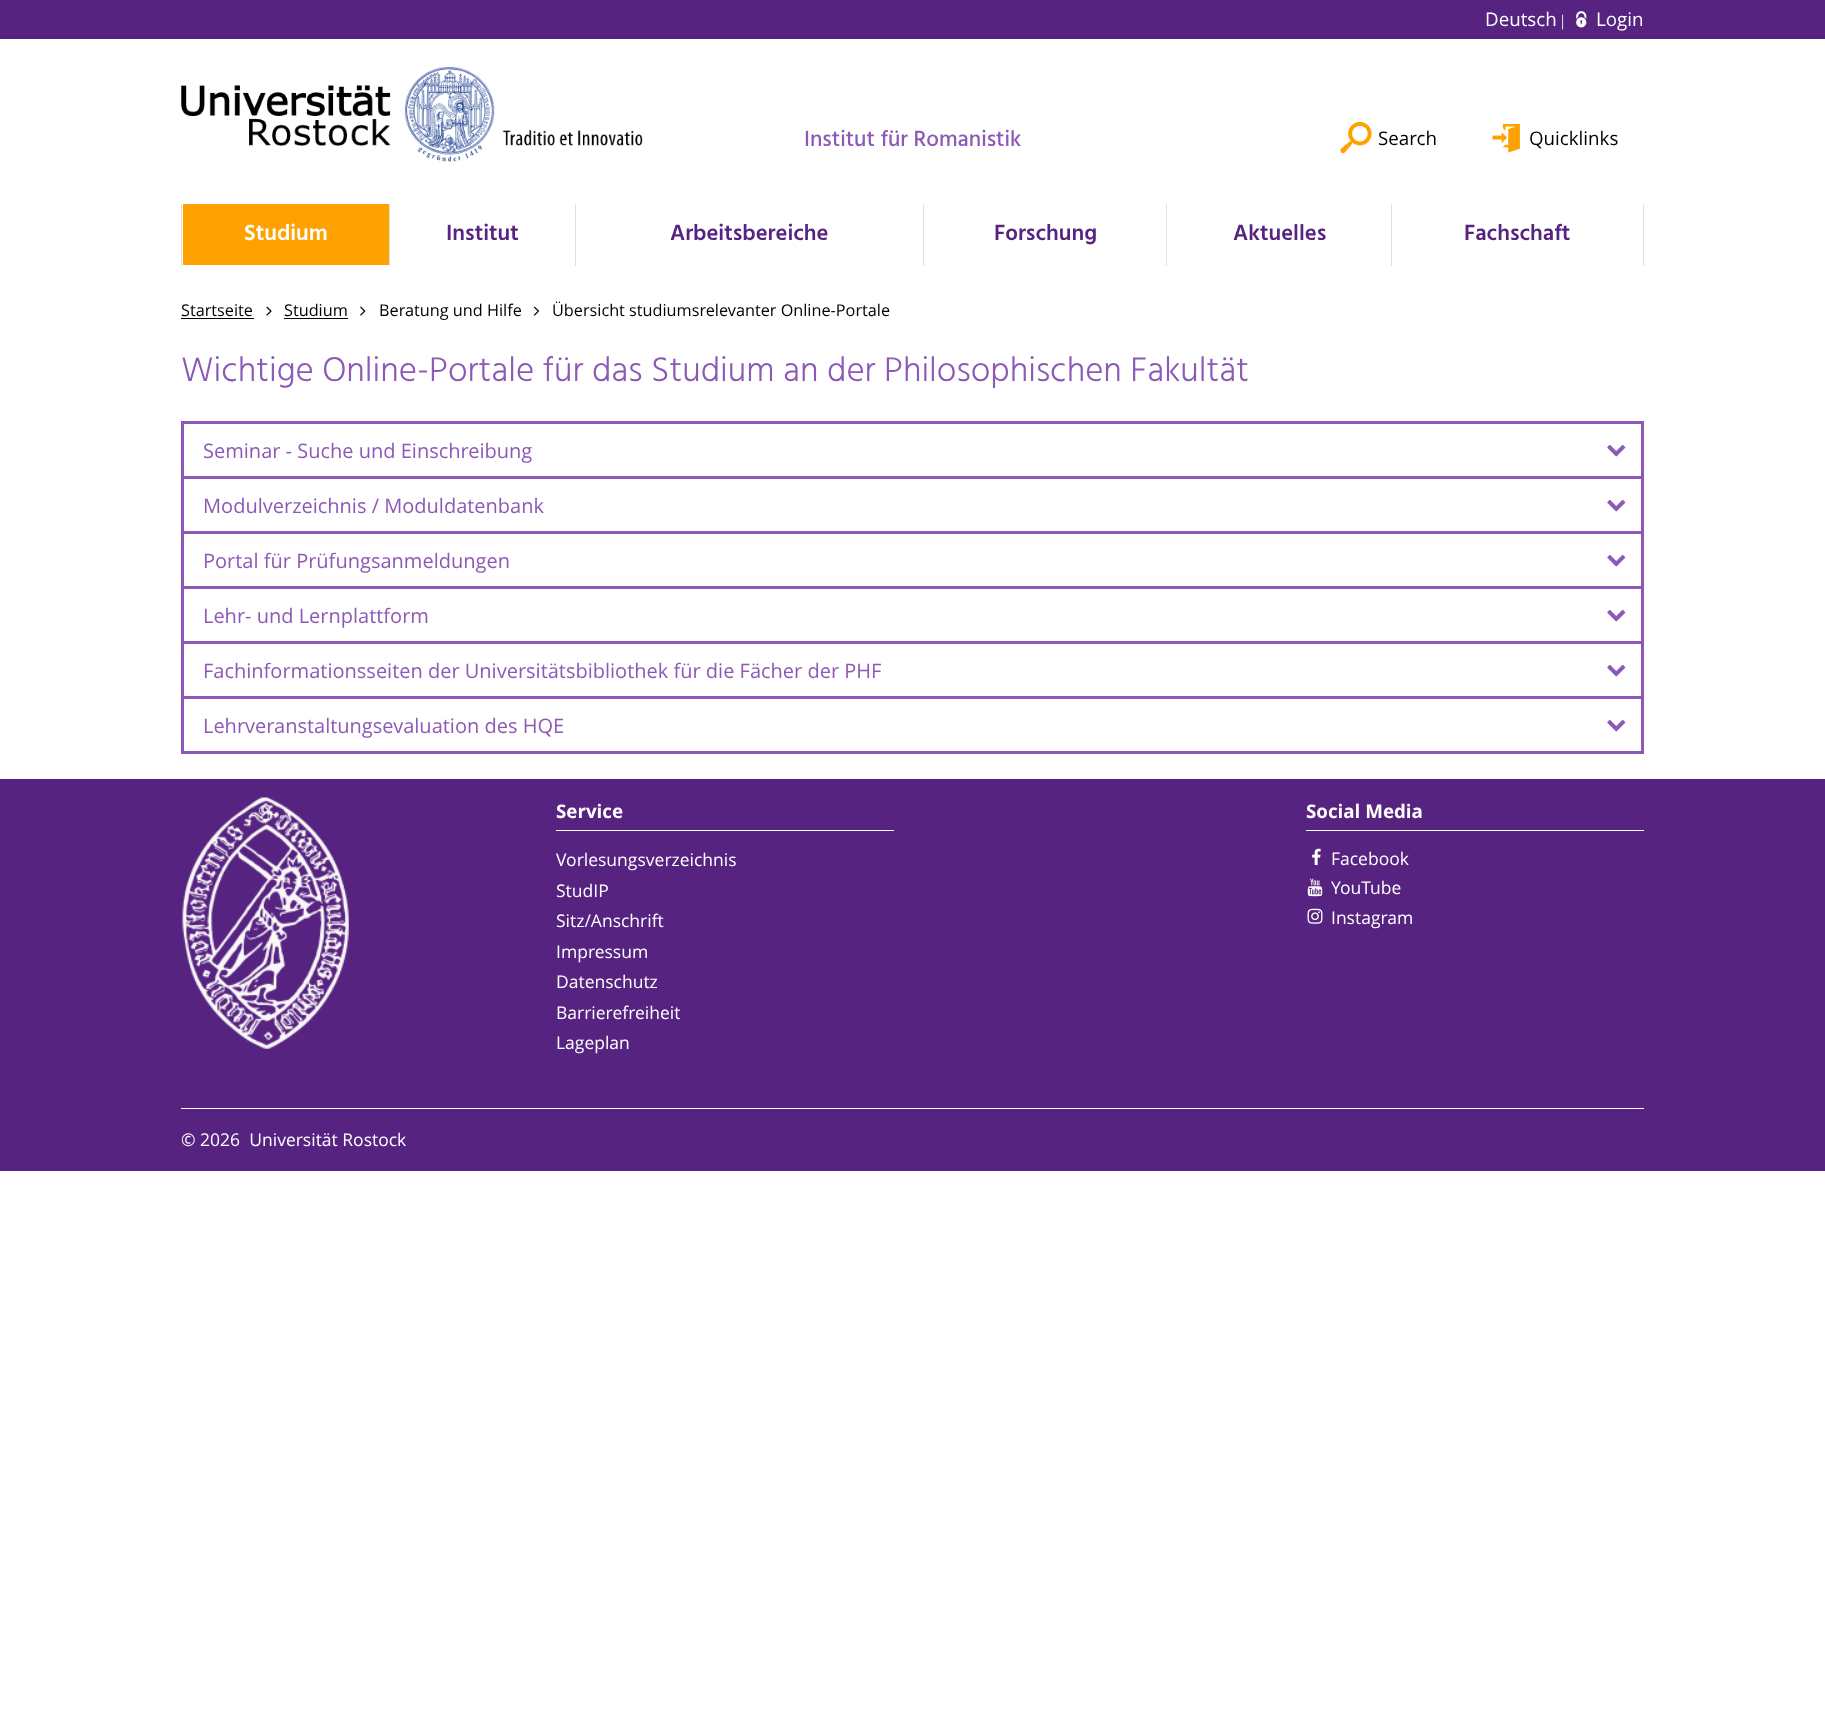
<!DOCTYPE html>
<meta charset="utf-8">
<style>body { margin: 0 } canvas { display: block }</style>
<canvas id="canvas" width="1825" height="1710"></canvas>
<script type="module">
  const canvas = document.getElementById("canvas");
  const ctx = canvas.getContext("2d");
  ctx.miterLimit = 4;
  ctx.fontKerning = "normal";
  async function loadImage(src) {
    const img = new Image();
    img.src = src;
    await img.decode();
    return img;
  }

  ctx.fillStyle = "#ffffff";
  ctx.fillRect(0, 0, 1825, 1710);
  ctx.fillStyle = "#572381";
  ctx.fillRect(0, 0, 1825, 39);
  ctx.font = "18.75px Open Sans";
  ctx.fillStyle = "#ffffff";
  ctx.fillText("Deutsch", 1485, 26);
  ctx.font = "16.25px Liberation Serif";
  ctx.fillText("|", 1561, 26);
  ctx.drawImage(await loadImage("img1.png"), 1576, 11, 11, 17);
  ctx.font = "18.75px Open Sans";
  ctx.fillText("Login", 1596, 26);
  ctx.drawImage(await loadImage("img2.png"), 181, 66, 462, 96);
  ctx.font = "500 22.5px Hind";
  ctx.fillStyle = "#8c59b6";
  ctx.fillText("Institut für Romanistik", 804, 146);
  ctx.drawImage(await loadImage("img3.png"), 1340, 122, 32, 32);
  ctx.font = "18.75px Open Sans";
  ctx.fillStyle = "#000000";
  ctx.fillText("Search", 1378, 145);
  ctx.drawImage(await loadImage("img4.png"), 1492, 123, 28, 30);
  ctx.fillText("Quicklinks", 1529, 145);
  ctx.fillStyle = "#dfdfdf";
  ctx.fillRect(181, 204, 1, 62);
  ctx.fillStyle = "#ffa100";
  ctx.fillRect(183, 204, 206, 61);
  ctx.font = "600 22.5px Hind";
  ctx.fillStyle = "#ffffff";
  ctx.fillText("Studium", 244, 240);
  ctx.fillStyle = "#dfdfdf";
  ctx.fillRect(389, 204, 1, 62);
  ctx.fillStyle = "#572381";
  ctx.fillText("Institut", 446, 240);
  ctx.fillStyle = "#dfdfdf";
  ctx.fillRect(575, 204, 1, 62);
  ctx.fillStyle = "#572381";
  ctx.fillText("Arbeitsbereiche", 670, 240);
  ctx.fillStyle = "#dfdfdf";
  ctx.fillRect(923, 204, 1, 62);
  ctx.fillStyle = "#572381";
  ctx.fillText("Forschung", 994, 240);
  ctx.fillStyle = "#dfdfdf";
  ctx.fillRect(1166, 204, 1, 62);
  ctx.fillStyle = "#572381";
  ctx.fillText("Aktuelles", 1233, 240);
  ctx.fillStyle = "#dfdfdf";
  ctx.fillRect(1643, 204, 1, 62);
  ctx.fillRect(1391, 204, 1, 62);
  ctx.fillStyle = "#572381";
  ctx.fillText("Fachschaft", 1464, 240);
  ctx.font = "16.25px Open Sans";
  ctx.fillStyle = "#000000";
  ctx.fillText("Startseite", 181, 316);
  ctx.fillRect(181, 318, 73, 1);
  ctx.drawImage(await loadImage("img5.png"), 266, 306, 6, 10);
  ctx.fillText("Studium", 284, 316);
  ctx.fillRect(284, 318, 64, 1);
  ctx.drawImage(await loadImage("img6.png"), 360, 306, 6, 10);
  ctx.fillText("Beratung und Hilfe", 379, 316);
  ctx.drawImage(await loadImage("img7.png"), 533, 306, 7, 10);
  ctx.fillText("Übersicht studiumsrelevanter Online-Portale", 552, 316);
  ctx.font = "300 35px Hind";
  ctx.fillStyle = "#8c59b6";
  ctx.fillText("Wichtige Online-Portale für das Studium an der Philosophischen Fakultät", 181, 381);
  ctx.strokeStyle = "#8c59b6";
  ctx.lineWidth = 3;
  ctx.strokeRect(182.5, 422.5, 1460, 55);
  ctx.font = "20px Open Sans";
  ctx.fillText("Seminar - Suche und Einschreibung", 203, 458);
  ctx.drawImage(await loadImage("img8.png"), 1607, 444, 19, 13);
  ctx.strokeRect(182.5, 477.5, 1460, 55);
  ctx.fillText("Modulverzeichnis / Moduldatenbank", 203, 513);
  ctx.drawImage(await loadImage("img8.png"), 1607, 499, 19, 13);
  ctx.strokeRect(182.5, 532.5, 1460, 55);
  ctx.fillText("Portal für Prüfungsanmeldungen", 203, 568);
  ctx.drawImage(await loadImage("img8.png"), 1607, 554, 19, 13);
  ctx.strokeRect(182.5, 587.5, 1460, 55);
  ctx.fillText("Lehr- und Lernplattform", 203, 623);
  ctx.drawImage(await loadImage("img8.png"), 1607, 609, 19, 13);
  ctx.strokeRect(182.5, 642.5, 1460, 55);
  ctx.fillText("Fachinformationsseiten der Universitätsbibliothek für die Fächer der PHF", 203, 678);
  ctx.drawImage(await loadImage("img8.png"), 1607, 664, 19, 13);
  ctx.strokeRect(182.5, 697.5, 1460, 55);
  ctx.fillText("Lehrveranstaltungsevaluation des HQE", 203, 733);
  ctx.drawImage(await loadImage("img8.png"), 1607, 719, 19, 13);
  ctx.fillStyle = "#572381";
  ctx.fillRect(0, 779, 1825, 392);
  ctx.drawImage(await loadImage("img9.png"), 182, 797, 167, 252);
  ctx.fillStyle = "#ffffff";
  ctx.fillRect(556, 830, 338, 1);
  ctx.font = "bold 18.75px Open Sans";
  ctx.fillText("Service", 556, 818);
  ctx.font = "17.5px Open Sans";
  ctx.fillText("Vorlesungsverzeichnis", 556, 866);
  ctx.fillText("StudIP", 556, 897);
  ctx.fillText("Sitz/Anschrift", 556, 927);
  ctx.fillText("Impressum", 556, 958);
  ctx.fillText("Datenschutz", 556, 988);
  ctx.fillText("Barrierefreiheit", 556, 1019);
  ctx.fillText("Lageplan", 556, 1049);
  ctx.fillRect(1306, 830, 338, 1);
  ctx.font = "bold 18.75px Open Sans";
  ctx.fillText("Social Media", 1306, 818);
  ctx.drawImage(await loadImage("img10.png"), 1312, 848, 9, 17);
  ctx.font = "17.5px Open Sans";
  ctx.fillText("Facebook", 1331, 865);
  ctx.drawImage(await loadImage("img11.png"), 1307, 878, 16, 19);
  ctx.fillText("YouTube", 1331, 894);
  ctx.drawImage(await loadImage("img12.png"), 1307, 908, 16, 16);
  ctx.fillText("Instagram", 1331, 924);
  ctx.fillRect(181, 1108, 1463, 1);
  ctx.fillText("© 2026  Universität Rostock", 181, 1146);
</script>
